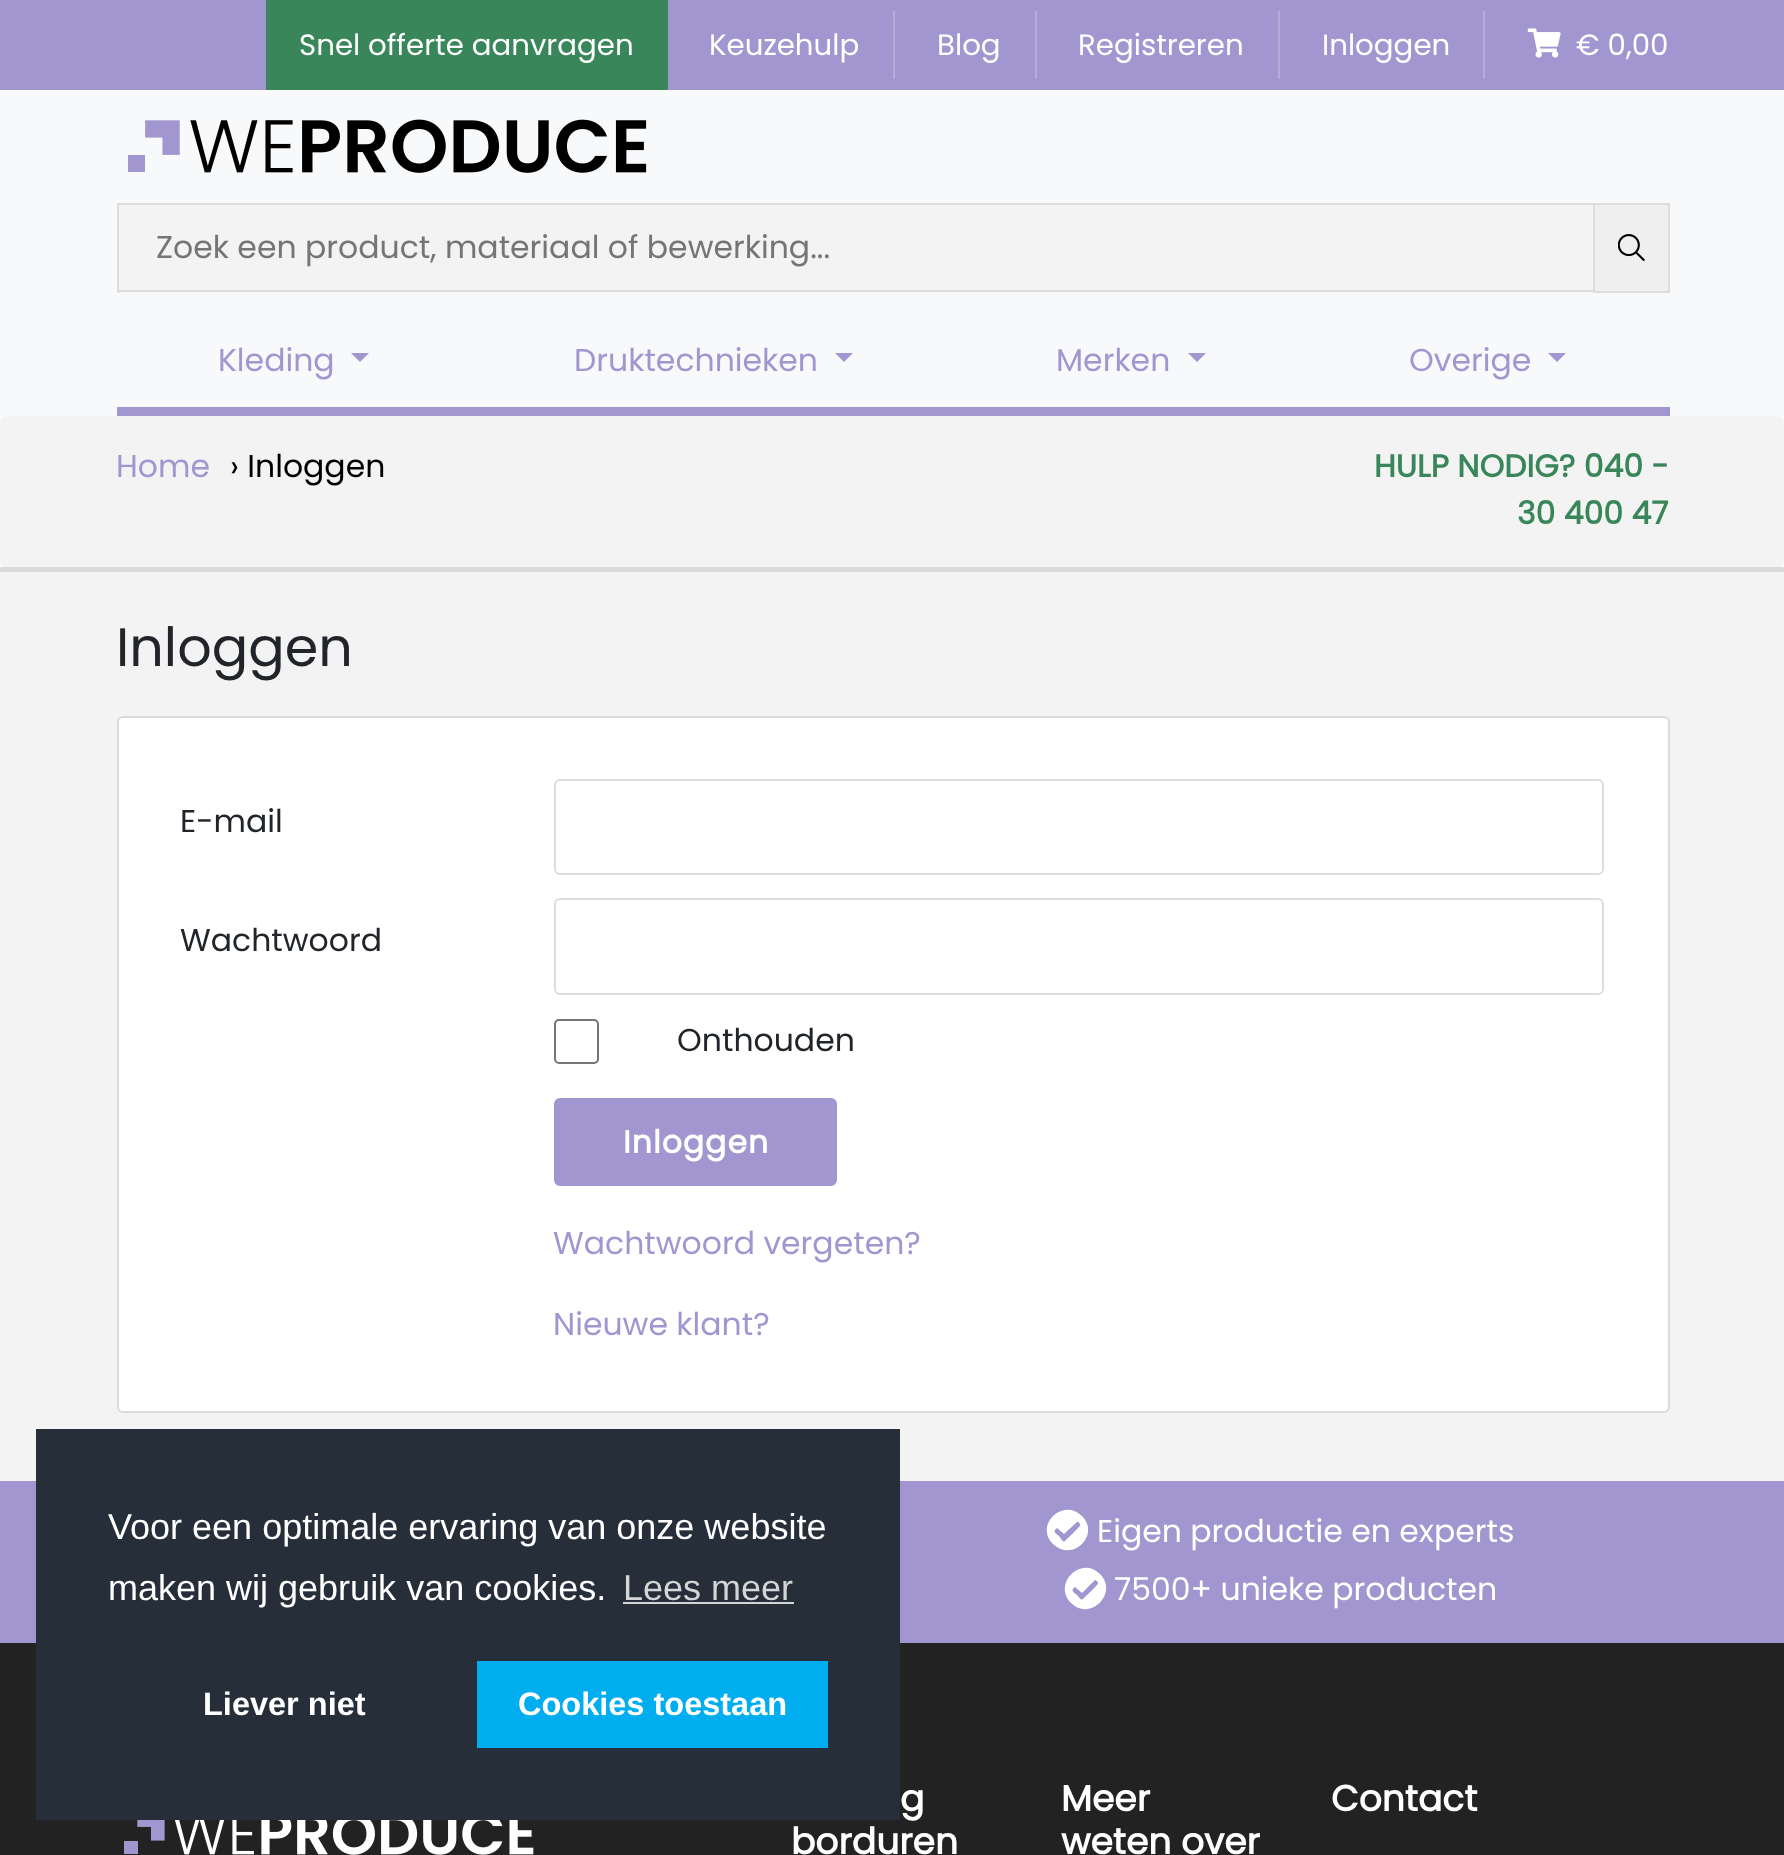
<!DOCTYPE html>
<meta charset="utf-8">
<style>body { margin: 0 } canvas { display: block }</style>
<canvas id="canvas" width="1784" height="1855"></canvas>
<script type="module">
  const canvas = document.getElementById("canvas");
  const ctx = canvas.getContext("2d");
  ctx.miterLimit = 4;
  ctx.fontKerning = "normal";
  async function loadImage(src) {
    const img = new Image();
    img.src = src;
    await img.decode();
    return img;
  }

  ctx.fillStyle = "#ffffff";
  ctx.fillRect(0, 0, 1784, 1855);
  ctx.fillStyle = "#a296d0";
  ctx.fillRect(0, 0, 1784, 90);
  ctx.fillStyle = "#388659";
  ctx.fillRect(266, 0, 402, 90);
  ctx.font = "29.25px Poppins";
  ctx.fillStyle = "#ffffff";
  ctx.fillText("Snel offerte aanvragen", 299, 55);
  ctx.fillStyle = "#b5abd9";
  ctx.fillRect(893, 11, 2, 68);
  ctx.fillStyle = "#ffffff";
  ctx.fillText("Keuzehulp", 709, 55);
  ctx.fillStyle = "#b5abd9";
  ctx.fillRect(1035, 11, 2, 68);
  ctx.fillStyle = "#ffffff";
  ctx.fillText("Blog", 937, 55);
  ctx.fillStyle = "#b5abd9";
  ctx.fillRect(1278, 11, 2, 68);
  ctx.fillStyle = "#ffffff";
  ctx.fillText("Registreren", 1078, 55);
  ctx.fillStyle = "#b5abd9";
  ctx.fillRect(1483, 11, 2, 68);
  ctx.fillStyle = "#ffffff";
  ctx.fillText("Inloggen", 1322, 55);
  ctx.drawImage(await loadImage("img1.png"), 1527, 28, 34, 30);
  ctx.fillText("€ 0,00", 1576, 55);
  ctx.fillStyle = "#f8f9fa";
  ctx.fillRect(0, 90, 1784, 326);
  ctx.drawImage(await loadImage("img2.png"), 128, 119, 519, 54);
  ctx.fillStyle = "#f3f3f3";
  ctx.fillRect(119, 205, 1474, 88);
  ctx.fillStyle = "#dddddd";
  ctx.fillRect(117, 203, 1476, 2);
  ctx.fillRect(117, 290, 1476, 2);
  ctx.fillRect(117, 203, 2, 90);
  ctx.font = "31.5px Poppins";
  ctx.fillStyle = "#757575";
  ctx.fillText("Zoek een product, materiaal of bewerking...", 156, 258);
  ctx.fillStyle = "#efefef";
  ctx.beginPath();
  ctx.rect(1594, 204, 75, 88);
  ctx.fill();
  ctx.strokeStyle = "#dddddd";
  ctx.lineWidth = 2;
  ctx.stroke();
  ctx.drawImage(await loadImage("img3.png"), 1618, 234, 27, 27);
  ctx.fillStyle = "#a296d0";
  ctx.fillRect(117, 407, 1553, 9);
  ctx.fillText("Kleding", 218, 371);
  ctx.beginPath();
  ctx.moveTo(351, 353);
  ctx.lineTo(369, 353);
  ctx.lineTo(360, 362);
  ctx.closePath();
  ctx.fill();
  ctx.fillText("Druktechnieken", 574, 371);
  ctx.beginPath();
  ctx.moveTo(835, 353);
  ctx.lineTo(853, 353);
  ctx.lineTo(844, 362);
  ctx.closePath();
  ctx.fill();
  ctx.fillText("Merken", 1056, 371);
  ctx.beginPath();
  ctx.moveTo(1188, 353);
  ctx.lineTo(1206, 353);
  ctx.lineTo(1197, 362);
  ctx.closePath();
  ctx.fill();
  ctx.fillText("Overige", 1409, 371);
  ctx.beginPath();
  ctx.moveTo(1548, 353);
  ctx.lineTo(1566, 353);
  ctx.lineTo(1557, 362);
  ctx.closePath();
  ctx.fill();
  ctx.fillStyle = "#f3f3f3";
  ctx.beginPath();
  ctx.roundRect(0, 416, 1784, 151, 6);
  ctx.fill();
  ctx.fillRect(2, 566, 1780, 1);
  ctx.fillStyle = "#a296d0";
  ctx.fillText("Home", 116, 477);
  ctx.fillStyle = "#000000";
  ctx.fillText("› Inloggen", 230, 477);
  ctx.font = "bold 31.5px Poppins";
  ctx.fillStyle = "#388659";
  ctx.fillText("HULP NODIG? 040 -", 1374, 477);
  ctx.fillText("30 400 47", 1517, 524);
  ctx.fillStyle = "#dadada";
  ctx.fillRect(0, 567, 1784, 5);
  ctx.fillStyle = "#f3f3f3";
  ctx.fillRect(0, 572, 1784, 909);
  ctx.font = "54px Poppins";
  ctx.fillStyle = "#212529";
  ctx.fillText("Inloggen", 116, 666);
  ctx.fillStyle = "#ffffff";
  ctx.beginPath();
  ctx.roundRect(118, 717, 1551, 695, 5);
  ctx.fill();
  ctx.strokeStyle = "#dadada";
  ctx.stroke();
  ctx.font = "31.5px Poppins";
  ctx.fillStyle = "#212529";
  ctx.fillText("E-mail", 180, 832);
  ctx.beginPath();
  ctx.roundRect(555, 780, 1048, 94, 5);
  ctx.strokeStyle = "#dddddd";
  ctx.stroke();
  ctx.fillText("Wachtwoord", 180, 951);
  ctx.beginPath();
  ctx.roundRect(555, 899, 1048, 95, 5);
  ctx.stroke();
  ctx.beginPath();
  ctx.roundRect(555, 1020, 43, 43, 4);
  ctx.strokeStyle = "#767676";
  ctx.stroke();
  ctx.fillText("Onthouden", 677, 1051);
  ctx.fillStyle = "#a296d0";
  ctx.beginPath();
  ctx.roundRect(555, 1099, 281, 86, 5);
  ctx.fill();
  ctx.strokeStyle = "#a296d0";
  ctx.stroke();
  ctx.letterSpacing = "1px";
  ctx.font = "bold 31.5px Poppins";
  ctx.fillStyle = "#ffffff";
  ctx.fillText("Inloggen", 623, 1153);
  ctx.letterSpacing = "0px";
  ctx.font = "31.5px Poppins";
  ctx.fillStyle = "#a296d0";
  ctx.fillText("Wachtwoord vergeten?", 553, 1254);
  ctx.fillText("Nieuwe klant?", 553, 1335);
  ctx.fillRect(0, 1481, 1784, 162);
  ctx.fillStyle = "#222222";
  ctx.fillRect(0, 1643, 1784, 212);
  ctx.fillStyle = "#252e39";
  ctx.fillRect(36, 1429, 864, 391);
  ctx.font = "36px Liberation Sans";
  ctx.fillStyle = "#ffffff";
  ctx.fillText("Voor een optimale ervaring van onze website", 108, 1539);
  ctx.fillText("maken wij gebruik van cookies.", 108, 1600);
  ctx.fillStyle = "#d3d5d7";
  ctx.fillText("Lees meer", 623, 1600);
  ctx.fillRect(623, 1602, 171, 2);
  ctx.font = "bold 32.5px Liberation Sans";
  ctx.fillStyle = "#ffffff";
  ctx.fillText("Liever niet", 203, 1715);
  ctx.fillStyle = "#00adee";
  ctx.fillRect(477, 1661, 351, 87);
  ctx.fillStyle = "#ffffff";
  ctx.fillText("Cookies toestaan", 518, 1715);
  ctx.beginPath();
  ctx.moveTo(1082, 1516);
  ctx.bezierCurveTo(1101, 1535, 1072, 1563, 1053, 1544);
  ctx.bezierCurveTo(1034, 1525, 1063, 1497, 1082, 1516);
  ctx.closePath();
  ctx.moveTo(1065, 1541);
  ctx.bezierCurveTo(1067, 1539, 1081, 1526, 1080, 1525);
  ctx.bezierCurveTo(1080, 1523, 1078, 1521, 1077, 1522);
  ctx.lineTo(1064, 1534);
  ctx.lineTo(1057, 1528);
  ctx.lineTo(1055, 1530);
  ctx.bezierCurveTo(1053, 1532, 1058, 1535, 1059, 1536);
  ctx.bezierCurveTo(1060, 1537, 1063, 1543, 1065, 1541);
  ctx.closePath();
  ctx.fill();
  ctx.font = "31.5px Poppins";
  ctx.fillText("Eigen productie en experts", 1097, 1542);
  ctx.beginPath();
  ctx.moveTo(1100, 1574);
  ctx.bezierCurveTo(1119, 1593, 1090, 1622, 1071, 1603);
  ctx.bezierCurveTo(1052, 1584, 1081, 1555, 1100, 1574);
  ctx.closePath();
  ctx.moveTo(1083, 1599);
  ctx.bezierCurveTo(1085, 1597, 1099, 1584, 1098, 1583);
  ctx.bezierCurveTo(1098, 1582, 1096, 1580, 1095, 1580);
  ctx.lineTo(1082, 1593);
  ctx.lineTo(1075, 1587);
  ctx.lineTo(1073, 1589);
  ctx.bezierCurveTo(1071, 1591, 1076, 1594, 1077, 1595);
  ctx.bezierCurveTo(1078, 1596, 1081, 1601, 1083, 1599);
  ctx.closePath();
  ctx.fill();
  ctx.fillText("7500+ unieke producten", 1114, 1600);
  ctx.drawImage(await loadImage("img4.png"), 124, 1820, 410, 35);
  ctx.font = "bold 36px Poppins";
  ctx.fillText("g", 900, 1811);
  ctx.fillText("borduren", 791, 1854);
  ctx.fillText("Meer", 1061, 1811);
  ctx.fillText("weten over", 1061, 1854);
  ctx.fillText("Contact", 1331, 1811);
</script>
